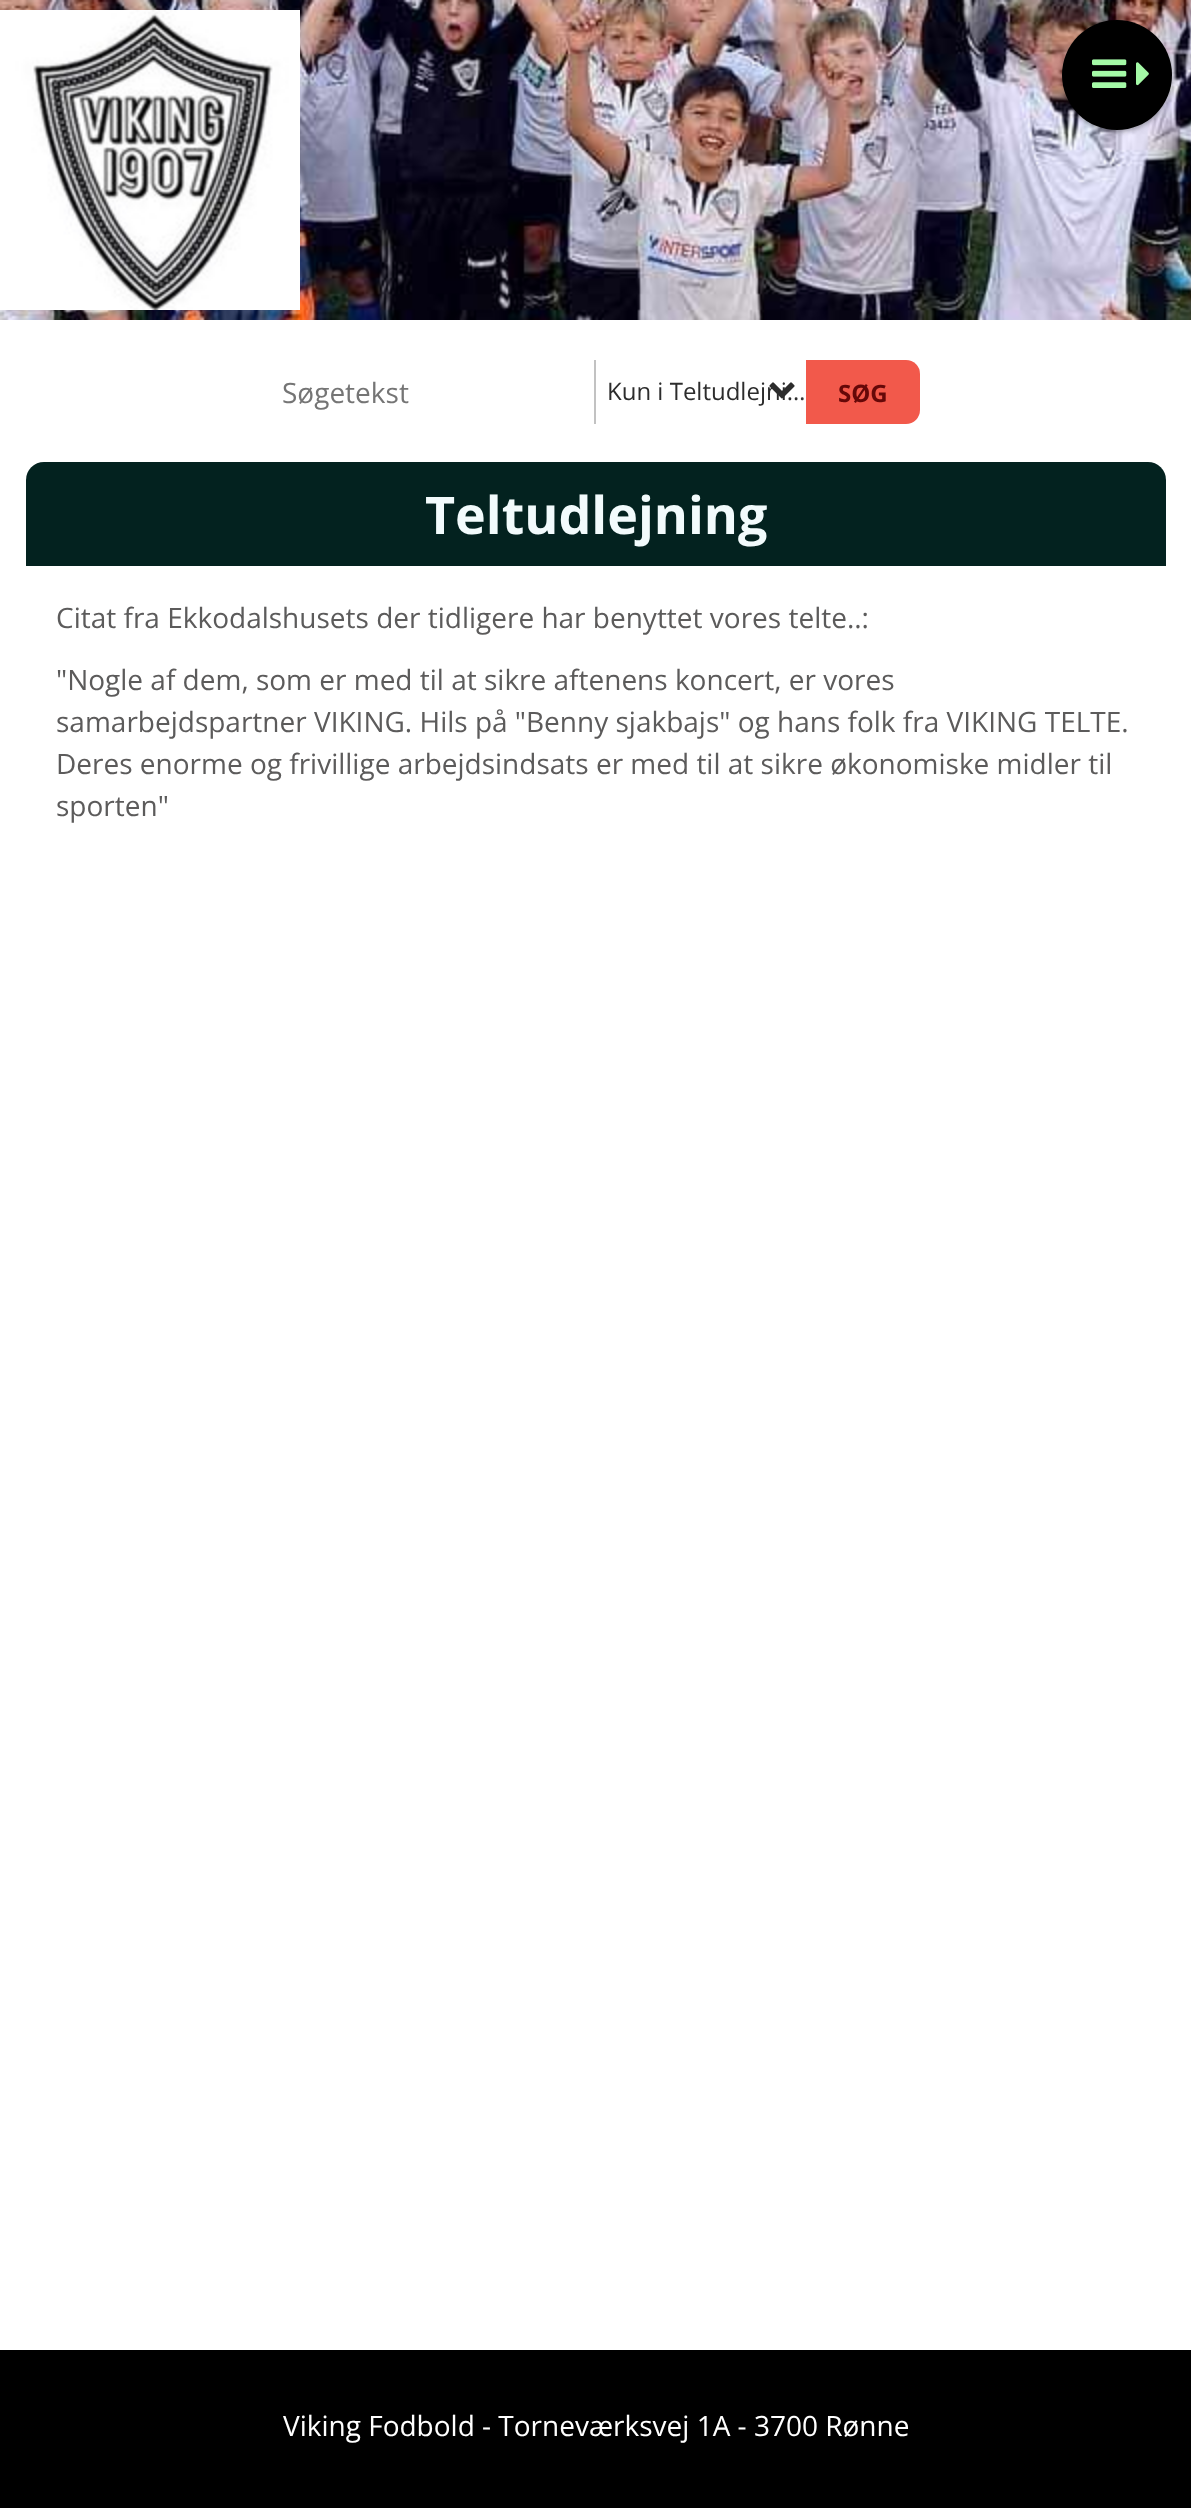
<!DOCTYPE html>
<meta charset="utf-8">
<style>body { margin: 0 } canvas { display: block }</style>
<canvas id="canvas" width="1191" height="2508"></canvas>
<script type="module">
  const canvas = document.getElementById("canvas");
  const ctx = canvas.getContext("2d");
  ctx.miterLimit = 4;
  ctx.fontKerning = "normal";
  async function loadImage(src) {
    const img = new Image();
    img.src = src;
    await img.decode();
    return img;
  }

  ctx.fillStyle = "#ffffff";
  ctx.fillRect(0, 0, 1191, 2508);
  ctx.drawImage(await loadImage("img1.png"), 0, 0, 1191, 320);
  ctx.drawImage(await loadImage("img2.png"), 0, 10, 300, 300);
  ctx.fillStyle = "rgba(0, 0, 0, 0.24)";
  ctx.filter = "blur(2px)";
  ctx.beginPath();
  ctx.roundRect(1062, 22, 110, 110, 55);
  ctx.fill();
  ctx.filter = "none";
  ctx.fillStyle = "rgba(0, 0, 0, 0.12)";
  ctx.filter = "blur(3px)";
  ctx.beginPath();
  ctx.roundRect(1062, 22, 110, 110, 55);
  ctx.fill();
  ctx.filter = "none";
  ctx.fillStyle = "#000000";
  ctx.beginPath();
  ctx.arc(1117, 75, 55, 0, Math.PI * 2);
  ctx.fill();
  ctx.drawImage(await loadImage("img3.png"), 1092, 59, 35, 29);
  ctx.drawImage(await loadImage("img4.png"), 1136, 62, 13, 24);
  ctx.font = "28px Open Sans";
  ctx.fillStyle = "#757575";
  ctx.fillText("Søgetekst", 282, 403);
  ctx.fillStyle = "#c2c2c2";
  ctx.fillRect(594, 360, 2, 64);
  ctx.font = "24px Open Sans";
  ctx.fillStyle = "#2c2c2c";
  ctx.fillText("Kun i Teltudlejni…", 607, 400);
  ctx.drawImage(await loadImage("img5.png"), 769, 382, 26, 17);
  ctx.save();
  ctx.beginPath();
  ctx.roundRect(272, 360, 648, 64, 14);
  ctx.clip();
  ctx.fillStyle = "rgba(247, 245, 245, 0.5)";
  ctx.filter = "blur(10px)";
  ctx.beginPath();
  ctx.rect(814, 360, 114, 64);
  ctx.fill();
  ctx.filter = "none";
  ctx.restore();
  ctx.fillStyle = "#f2594b";
  ctx.beginPath();
  ctx.roundRect(806, 360, 114, 64, [0, 14, 14, 0]);
  ctx.fill();
  ctx.font = "bold 24px Open Sans";
  ctx.fillStyle = "#650808";
  ctx.fillText("SØG", 838, 402);
  ctx.fillStyle = "#03221f";
  ctx.beginPath();
  ctx.roundRect(26, 462, 1140, 104, [18, 18, 0, 0]);
  ctx.fill();
  ctx.font = "bold 52px Open Sans";
  ctx.fillStyle = "#f2fbfc";
  ctx.fillText("Teltudlejning", 425, 534);
  ctx.font = "28px Open Sans";
  ctx.fillStyle = "#5c5b5b";
  ctx.fillText("Citat fra Ekkodalshusets der tidligere har benyttet vores telte..:", 56, 628);
  ctx.fillText("\"Nogle af dem, som er med til at sikre aftenens koncert, er vores", 56, 690);
  ctx.fillText("samarbejdspartner VIKING. Hils på \"Benny sjakbajs\" og hans folk fra VIKING TELTE.", 56, 732);
  ctx.fillText("Deres enorme og frivillige arbejdsindsats er med til at sikre økonomiske midler til", 56, 774);
  ctx.fillText("sporten\"", 56, 816);
  ctx.fillStyle = "#000000";
  ctx.fillRect(0, 2350, 1191, 158);
  ctx.fillStyle = "#ffffff";
  ctx.fillText("Viking Fodbold - Torneværksvej 1A - 3700 Rønne", 283, 2436);
</script>
